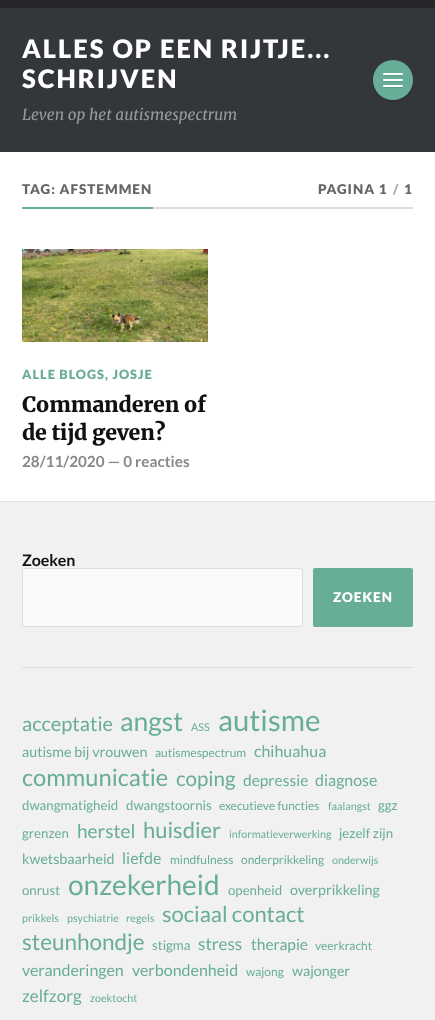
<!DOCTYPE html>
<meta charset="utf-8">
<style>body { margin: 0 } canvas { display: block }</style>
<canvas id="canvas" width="435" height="1020"></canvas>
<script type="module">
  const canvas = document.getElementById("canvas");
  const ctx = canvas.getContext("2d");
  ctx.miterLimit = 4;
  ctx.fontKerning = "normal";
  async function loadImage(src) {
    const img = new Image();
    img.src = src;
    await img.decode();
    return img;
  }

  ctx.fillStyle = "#ffffff";
  ctx.fillRect(0, 0, 435, 1020);
  ctx.fillStyle = "#33363b";
  ctx.fillRect(0, 8, 435, 144);
  ctx.fillStyle = "#26272b";
  ctx.fillRect(0, 0, 435, 8);
  ctx.letterSpacing = "2px";
  ctx.font = "900 25.5px Lato";
  ctx.fillStyle = "#ffffff";
  ctx.fillText("ALLES OP EEN RIJTJE...", 22, 58);
  ctx.fillText("SCHRIJVEN", 22, 88);
  ctx.fillStyle = "#2e3135";
  ctx.beginPath();
  ctx.moveTo(373, 81);
  ctx.bezierCurveTo(372, 109, 414, 109, 413, 81);
  ctx.bezierCurveTo(412, 106, 374, 106, 373, 81);
  ctx.closePath();
  ctx.fill();
  ctx.fillStyle = "#68ad98";
  ctx.beginPath();
  ctx.arc(393, 80, 20, 0, Math.PI * 2);
  ctx.fill();
  ctx.fillStyle = "#5e9c89";
  ctx.beginPath();
  ctx.moveTo(383, 74.5);
  ctx.bezierCurveTo(382, 76, 385, 76, 387, 76);
  ctx.lineTo(399, 76);
  ctx.bezierCurveTo(401, 76, 404, 76, 403, 74.5);
  ctx.lineTo(402, 75);
  ctx.lineTo(384, 75);
  ctx.closePath();
  ctx.fill();
  ctx.fillStyle = "#ffffff";
  ctx.beginPath();
  ctx.roundRect(383, 73, 20, 2, 1);
  ctx.fill();
  ctx.fillStyle = "#5e9c89";
  ctx.beginPath();
  ctx.moveTo(383, 80.5);
  ctx.bezierCurveTo(382, 82, 385, 82, 387, 82);
  ctx.lineTo(399, 82);
  ctx.bezierCurveTo(401, 82, 404, 82, 403, 80.5);
  ctx.lineTo(402, 81);
  ctx.lineTo(384, 81);
  ctx.closePath();
  ctx.fill();
  ctx.fillStyle = "#ffffff";
  ctx.beginPath();
  ctx.roundRect(383, 79, 20, 2, 1);
  ctx.fill();
  ctx.fillStyle = "#5e9c89";
  ctx.beginPath();
  ctx.moveTo(383, 86.5);
  ctx.bezierCurveTo(382, 88, 385, 88, 387, 88);
  ctx.lineTo(399, 88);
  ctx.bezierCurveTo(401, 88, 404, 88, 403, 86.5);
  ctx.lineTo(402, 87);
  ctx.lineTo(384, 87);
  ctx.closePath();
  ctx.fill();
  ctx.fillStyle = "#ffffff";
  ctx.beginPath();
  ctx.roundRect(383, 85, 20, 2, 1);
  ctx.fill();
  ctx.letterSpacing = "0px";
  ctx.font = "italic 15.25px Merriweather";
  ctx.fillStyle = "#999999";
  ctx.fillText("Leven op het autismespectrum", 22, 120);
  ctx.fillStyle = "#dddddd";
  ctx.fillRect(153, 207, 260, 2);
  ctx.fillStyle = "#68ad98";
  ctx.fillRect(22, 207, 131, 2);
  ctx.letterSpacing = "1px";
  ctx.font = "900 13.5px Lato";
  ctx.fillStyle = "#666666";
  ctx.fillText("TAG: AFSTEMMEN", 22, 194);
  ctx.fillText("PAGINA 1", 318, 194);
  ctx.fillStyle = "#aaaaaa";
  ctx.fillText("/", 393, 194);
  ctx.fillStyle = "#666666";
  ctx.fillText("1", 404, 194);
  ctx.drawImage(await loadImage("img1.png"), 22, 249, 186, 93);
  ctx.font = "900 12.75px Lato";
  ctx.fillStyle = "#68ad98";
  ctx.fillText("ALLE BLOGS, JOSJE", 22, 379);
  ctx.letterSpacing = "-0.25px";
  ctx.font = "900 21.25px Merriweather";
  ctx.fillStyle = "#111111";
  ctx.fillText("Commanderen of", 22, 412);
  ctx.fillText("de tijd geven?", 22, 440);
  ctx.letterSpacing = "0px";
  ctx.font = "bold 15.25px Lato";
  ctx.fillStyle = "#888888";
  ctx.fillText("28/11/2020 — 0 reacties", 22, 467);
  ctx.fillStyle = "#f1f1f1";
  ctx.fillRect(0, 502, 435, 518);
  ctx.fillStyle = "#dddddd";
  ctx.fillRect(0, 501, 435, 1);
  ctx.font = "bold 16px Lato";
  ctx.fillStyle = "#111111";
  ctx.fillText("Zoeken", 22, 566);
  ctx.fillStyle = "#fafafa";
  ctx.beginPath();
  ctx.roundRect(22.5, 568.5, 280, 58, 2.5);
  ctx.fill();
  ctx.strokeStyle = "#dddddd";
  ctx.stroke();
  ctx.fillStyle = "#68ad98";
  ctx.beginPath();
  ctx.roundRect(313, 568, 100, 59, 2);
  ctx.fill();
  ctx.letterSpacing = "1px";
  ctx.font = "900 13.5px Lato";
  ctx.fillStyle = "#ffffff";
  ctx.fillText("ZOEKEN", 333, 602);
  ctx.fillStyle = "#dddddd";
  ctx.fillRect(22, 667, 391, 1);
  ctx.letterSpacing = "0px";
  ctx.font = "20px Lato";
  ctx.fillStyle = "#68ad98";
  ctx.fillText("acceptatie", 22, 731);
  ctx.font = "26.5px Lato";
  ctx.fillText("angst", 120, 731);
  ctx.font = "10.75px Lato";
  ctx.fillText("ASS", 191, 731);
  ctx.font = "29.5px Lato";
  ctx.fillText("autisme", 218, 731);
  ctx.font = "14.25px Lato";
  ctx.fillText("autisme bij vrouwen", 22, 757);
  ctx.font = "12px Lato";
  ctx.fillText("autismespectrum", 155, 757);
  ctx.font = "16px Lato";
  ctx.fillText("chihuahua", 254, 757);
  ctx.font = "23.75px Lato";
  ctx.fillText("communicatie", 22, 786);
  ctx.font = "20.5px Lato";
  ctx.fillText("coping", 176, 786);
  ctx.font = "15.5px Lato";
  ctx.fillText("depressie", 243, 786);
  ctx.font = "16px Lato";
  ctx.fillText("diagnose", 315, 786);
  ctx.font = "13.25px Lato";
  ctx.fillText("dwangmatigheid", 22, 810);
  ctx.fillText("dwangstoornis", 126, 810);
  ctx.font = "12px Lato";
  ctx.fillText("executieve functies", 219, 810);
  ctx.font = "10.75px Lato";
  ctx.fillText("faalangst", 328, 810);
  ctx.font = "13.25px Lato";
  ctx.fillText("ggz", 378, 810);
  ctx.fillText("grenzen", 22, 838);
  ctx.font = "19px Lato";
  ctx.fillText("herstel", 77, 838);
  ctx.font = "22px Lato";
  ctx.fillText("huisdier", 143, 838);
  ctx.font = "10.75px Lato";
  ctx.fillText("informatieverwerking", 229, 838);
  ctx.font = "13.25px Lato";
  ctx.fillText("jezelf zijn", 339, 838);
  ctx.font = "14.25px Lato";
  ctx.fillText("kwetsbaarheid", 22, 864);
  ctx.font = "16px Lato";
  ctx.fillText("liefde", 122, 864);
  ctx.font = "12px Lato";
  ctx.fillText("mindfulness", 170, 864);
  ctx.fillText("onderprikkeling", 241, 864);
  ctx.font = "10.75px Lato";
  ctx.fillText("onderwijs", 332, 864);
  ctx.font = "13.25px Lato";
  ctx.fillText("onrust", 22, 895);
  ctx.font = "28px Lato";
  ctx.fillText("onzekerheid", 68, 895);
  ctx.font = "13.25px Lato";
  ctx.fillText("openheid", 228, 895);
  ctx.font = "14.25px Lato";
  ctx.fillText("overprikkeling", 290, 895);
  ctx.font = "10.75px Lato";
  ctx.fillText("prikkels", 22, 922);
  ctx.fillText("psychiatrie", 67, 922);
  ctx.fillText("regels", 126, 922);
  ctx.font = "22px Lato";
  ctx.fillText("sociaal contact", 162, 922);
  ctx.font = "22.5px Lato";
  ctx.fillText("steunhondje", 22, 950);
  ctx.font = "13.25px Lato";
  ctx.fillText("stigma", 152, 950);
  ctx.font = "17px Lato";
  ctx.fillText("stress", 198, 950);
  ctx.font = "15.5px Lato";
  ctx.fillText("therapie", 251, 950);
  ctx.font = "12px Lato";
  ctx.fillText("veerkracht", 315, 950);
  ctx.font = "16px Lato";
  ctx.fillText("veranderingen", 22, 976);
  ctx.fillText("verbondenheid", 132, 976);
  ctx.font = "12px Lato";
  ctx.fillText("wajong", 246, 976);
  ctx.font = "14.25px Lato";
  ctx.fillText("wajonger", 292, 976);
  ctx.font = "17px Lato";
  ctx.fillText("zelfzorg", 22, 1002);
  ctx.font = "10.75px Lato";
  ctx.fillText("zoektocht", 90, 1002);
</script>
